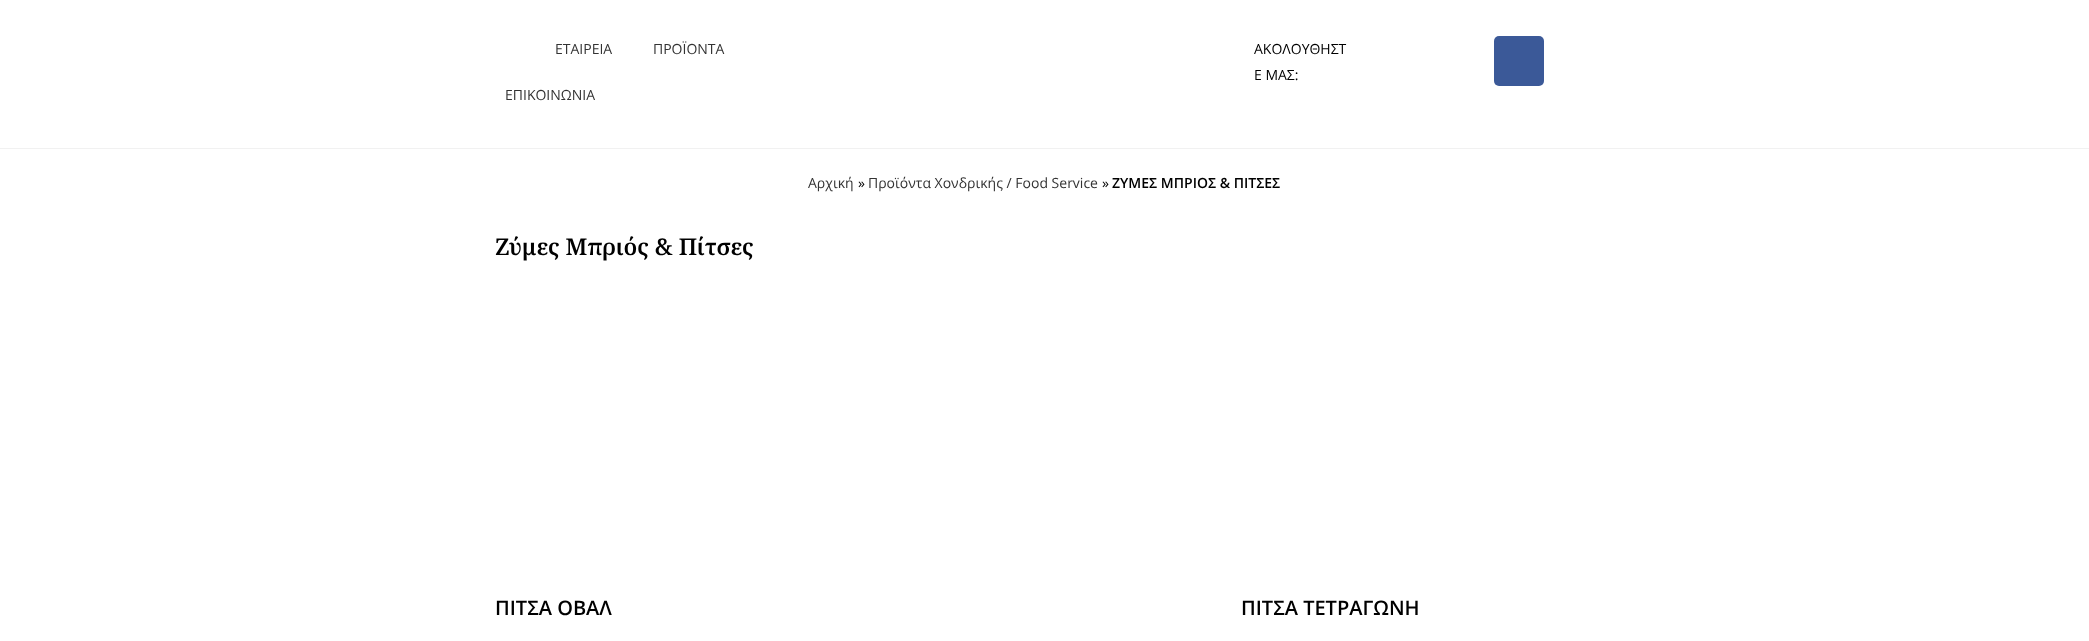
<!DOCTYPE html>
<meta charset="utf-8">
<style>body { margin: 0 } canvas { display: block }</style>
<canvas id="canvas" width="2089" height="641"></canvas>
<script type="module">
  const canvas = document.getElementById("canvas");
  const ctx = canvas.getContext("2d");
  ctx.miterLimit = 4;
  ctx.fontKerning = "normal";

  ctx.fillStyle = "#ffffff";
  ctx.fillRect(0, 0, 2089, 641);
  ctx.font = "14px Open Sans";
  ctx.fillStyle = "#333333";
  ctx.fillText("ΕΤΑΙΡΕΙΑ", 555, 54);
  ctx.fillText("ΠΡΟΪΟΝΤΑ", 653, 54);
  ctx.fillText("ΕΠΙΚΟΙΝΩΝΙΑ", 505, 100);
  ctx.fillStyle = "#000000";
  ctx.fillText("ΑΚΟΛΟΥΘΗΣΤ", 1254, 54);
  ctx.fillText("Ε ΜΑΣ:", 1254, 80);
  ctx.fillStyle = "#3b5998";
  ctx.beginPath();
  ctx.roundRect(1494, 36, 50, 50, 5);
  ctx.fill();
  ctx.fillStyle = "#f1f1f1";
  ctx.fillRect(0, 148, 2089, 1);
  ctx.fillStyle = "#333333";
  ctx.fillText("Αρχική", 808, 188);
  ctx.fillStyle = "#000000";
  ctx.fillText("»", 858, 188);
  ctx.fillStyle = "#333333";
  ctx.fillText("Προϊόντα Χονδρικής / Food Service", 868, 188);
  ctx.fillStyle = "#000000";
  ctx.fillText("»", 1102, 188);
  ctx.font = "600 14px Open Sans";
  ctx.fillText("ΖΥΜΕΣ ΜΠΡΙΟΣ & ΠΙΤΣΕΣ", 1112, 188);
  ctx.font = "600 23px Noto Serif";
  ctx.fillText("Ζύμες Μπριός & Πίτσες", 495, 255);
  ctx.font = "600 20px Open Sans";
  ctx.fillText("ΠΙΤΣΑ ΟΒΑΛ", 495, 615);
  ctx.fillText("ΠΙΤΣΑ ΤΕΤΡΑΓΩΝΗ", 1241, 615);
</script>
